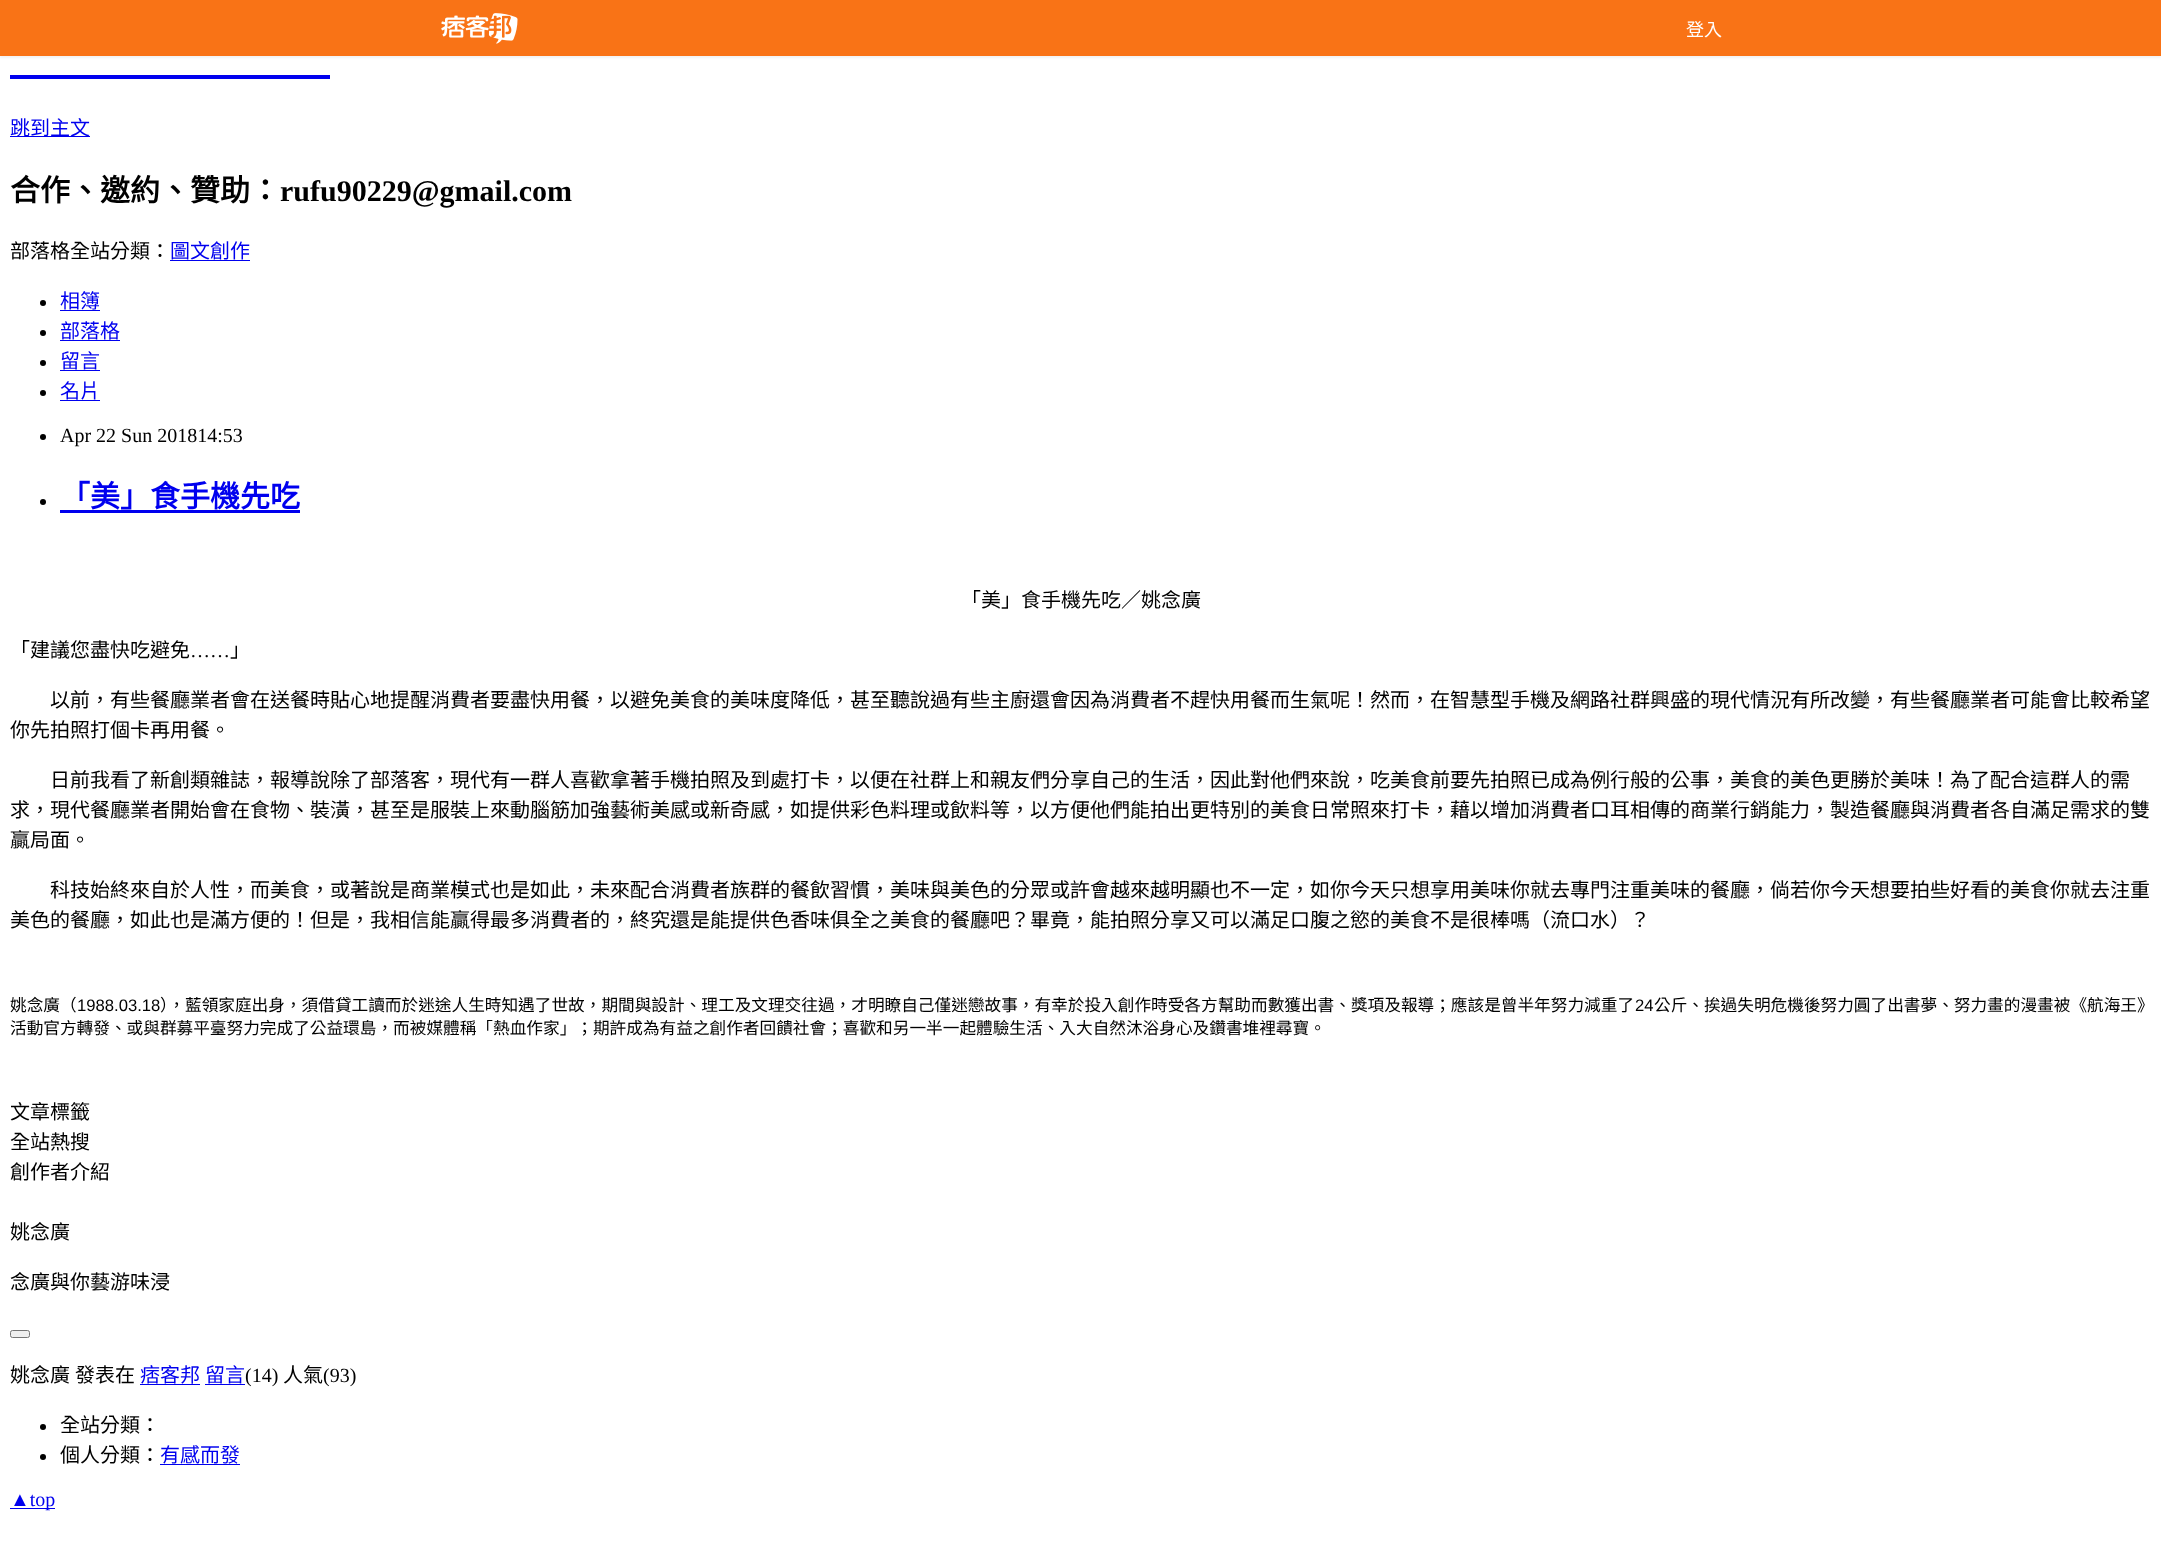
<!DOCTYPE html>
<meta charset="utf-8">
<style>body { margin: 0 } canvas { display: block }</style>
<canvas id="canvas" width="2161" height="1555"></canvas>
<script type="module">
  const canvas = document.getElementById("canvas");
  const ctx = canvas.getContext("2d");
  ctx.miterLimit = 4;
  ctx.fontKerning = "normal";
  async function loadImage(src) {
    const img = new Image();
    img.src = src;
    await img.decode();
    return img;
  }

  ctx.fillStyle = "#ffffff";
  ctx.fillRect(0, 0, 2161, 1555);
  ctx.fillStyle = "rgba(0, 0, 0, 0.05)";
  ctx.filter = "blur(1px)";
  ctx.beginPath();
  ctx.rect(0, 1, 2161, 57);
  ctx.fill();
  ctx.filter = "none";
  ctx.fillStyle = "#f97316";
  ctx.fillRect(0, 0, 2161, 56);
  ctx.drawImage(await loadImage("img1.png"), 441, 13, 77, 31);
  ctx.font = "18px Noto Sans CJK TC";
  ctx.fillStyle = "#ffffff";
  ctx.fillText("登入", 1686, 36);
  ctx.fillStyle = "#0000ee";
  ctx.fillRect(10, 75, 320, 4);
  ctx.fillRect(10, 136, 80, 1);
  ctx.font = "20px Noto Sans CJK TC";
  ctx.fillText("跳到主文", 10, 135);
  ctx.font = "bold 30px Noto Sans CJK TC";
  ctx.fillStyle = "#000000";
  ctx.fillText("合作、邀約、贊助：", 10, 201);
  ctx.font = "bold 30px Liberation Serif";
  ctx.fillText("rufu90229@gmail.com", 280, 201);
  ctx.font = "20px Noto Sans CJK TC";
  ctx.fillText("部落格全站分類：", 10, 258);
  ctx.fillStyle = "#0000ee";
  ctx.fillText("圖文創作", 170, 258);
  ctx.fillRect(170, 260, 80, 1);
  ctx.fillStyle = "#000000";
  ctx.beginPath();
  ctx.arc(43, 303, 3, 0, Math.PI * 2);
  ctx.fill();
  ctx.fillStyle = "#0000ee";
  ctx.fillText("相簿", 60, 308);
  ctx.fillRect(60, 310, 40, 1);
  ctx.fillStyle = "#000000";
  ctx.beginPath();
  ctx.arc(43, 333, 3, 0, Math.PI * 2);
  ctx.fill();
  ctx.fillStyle = "#0000ee";
  ctx.fillText("部落格", 60, 338);
  ctx.fillRect(60, 340, 60, 1);
  ctx.fillStyle = "#000000";
  ctx.beginPath();
  ctx.arc(43, 363, 3, 0, Math.PI * 2);
  ctx.fill();
  ctx.fillStyle = "#0000ee";
  ctx.fillText("留言", 60, 368);
  ctx.fillRect(60, 370, 40, 1);
  ctx.fillStyle = "#000000";
  ctx.beginPath();
  ctx.arc(43, 393, 3, 0, Math.PI * 2);
  ctx.fill();
  ctx.fillStyle = "#0000ee";
  ctx.fillText("名片", 60, 398);
  ctx.fillRect(60, 400, 40, 1);
  ctx.fillStyle = "#000000";
  ctx.beginPath();
  ctx.arc(43, 437, 3, 0, Math.PI * 2);
  ctx.fill();
  ctx.font = "20px Liberation Serif";
  ctx.fillText("Apr 22 Sun 201814:53", 60, 442);
  ctx.beginPath();
  ctx.arc(43, 502, 3, 0, Math.PI * 2);
  ctx.fill();
  ctx.font = "bold 30px Noto Sans CJK TC";
  ctx.fillStyle = "#0000ee";
  ctx.fillText("「美」食手機先吃", 60, 507);
  ctx.fillRect(60, 510, 240, 3);
  ctx.font = "20px Noto Sans CJK TC";
  ctx.fillStyle = "#000000";
  ctx.fillText("「美」食手機先吃／姚念廣", 961, 607);
  ctx.fillText("「建議您盡快吃避免", 10, 657);
  ctx.font = "20px Liberation Serif";
  ctx.fillText("……", 190, 657);
  ctx.font = "20px Noto Sans CJK TC";
  ctx.fillText("」", 230, 657);
  ctx.fillText("以前，有些餐廳業者會在送餐時貼心地提醒消費者要盡快用餐，以避免美食的美味度降低，甚至聽說過有些主廚還會因為消費者不趕快用餐而生氣呢！然而，在智慧型手機及網路社群興盛的現代情況有所改變，有些餐廳業者可能會比較希望", 50, 707);
  ctx.fillText("你先拍照打個卡再用餐。", 10, 737);
  ctx.fillText("日前我看了新創類雜誌，報導說除了部落客，現代有一群人喜歡拿著手機拍照及到處打卡，以便在社群上和親友們分享自己的生活，因此對他們來說，吃美食前要先拍照已成為例行般的公事，美食的美色更勝於美味！為了配合這群人的需", 50, 787);
  ctx.fillText("求，現代餐廳業者開始會在食物、裝潢，甚至是服裝上來動腦筋加強藝術美感或新奇感，如提供彩色料理或飲料等，以方便他們能拍出更特別的美食日常照來打卡，藉以增加消費者口耳相傳的商業行銷能力，製造餐廳與消費者各自滿足需求的雙", 10, 817);
  ctx.fillText("贏局面。", 10, 847);
  ctx.fillText("科技始終來自於人性，而美食，或著說是商業模式也是如此，未來配合消費者族群的餐飲習慣，美味與美色的分眾或許會越來越明顯也不一定，如你今天只想享用美味你就去專門注重美味的餐廳，倘若你今天想要拍些好看的美食你就去注重", 50, 897);
  ctx.fillText("美色的餐廳，如此也是滿方便的！但是，我相信能贏得最多消費者的，終究還是能提供色香味俱全之美食的餐廳吧？畢竟，能拍照分享又可以滿足口腹之慾的美食不是很棒嗎（流口水）？", 10, 927);
  ctx.font = "16.67px Noto Sans CJK TC";
  ctx.fillText("姚念廣（", 10, 1011);
  ctx.font = "16.67px Liberation Sans";
  ctx.fillText("1988.03.18", 77, 1011);
  ctx.font = "16.67px Noto Sans CJK TC";
  ctx.fillText("），藍領家庭出身，須借貸工讀而於迷途人生時知遇了世故，期間與設計、理工及文理交往過，才明瞭自己僅迷戀故事，有幸於投入創作時受各方幫助而數獲出書、獎項及報導；應該是曾半年努力減重了", 160, 1011);
  ctx.font = "16.67px Liberation Sans";
  ctx.fillText("24", 1635, 1011);
  ctx.font = "16.67px Noto Sans CJK TC";
  ctx.fillText("公斤、挨過失明危機後努力圓了出書夢、努力畫的漫畫被《航海王》", 1654, 1011);
  ctx.fillText("活動官方轉發、或與群募平臺努力完成了公益環島，而被媒體稱「熱血作家」；期許成為有益之創作者回饋社會；喜歡和另一半一起體驗生活、入大自然沐浴身心及鑽書堆裡尋寶。", 10, 1034);
  ctx.font = "20px Noto Sans CJK TC";
  ctx.fillText("文章標籤", 10, 1119);
  ctx.fillText("全站熱搜", 10, 1149);
  ctx.fillText("創作者介紹", 10, 1179);
  ctx.fillText("姚念廣", 10, 1239);
  ctx.fillText("念廣與你藝游味浸", 10, 1289);
  ctx.fillStyle = "#efefef";
  ctx.beginPath();
  ctx.roundRect(10.5, 1330.5, 19, 7, 2);
  ctx.fill();
  ctx.strokeStyle = "#767676";
  ctx.stroke();
  ctx.fillStyle = "#000000";
  ctx.fillText("姚念廣", 10, 1382);
  ctx.fillText("發表在", 75, 1382);
  ctx.fillStyle = "#0000ee";
  ctx.fillText("痞客邦", 140, 1382);
  ctx.fillRect(140, 1384, 60, 1);
  ctx.fillText("留言", 205, 1382);
  ctx.fillRect(205, 1384, 40, 1);
  ctx.font = "20px Liberation Serif";
  ctx.fillStyle = "#000000";
  ctx.fillText("(14)", 245, 1382);
  ctx.font = "20px Noto Sans CJK TC";
  ctx.fillText("人氣", 283, 1382);
  ctx.font = "20px Liberation Serif";
  ctx.fillText("(93)", 323, 1382);
  ctx.beginPath();
  ctx.arc(43, 1427, 3, 0, Math.PI * 2);
  ctx.fill();
  ctx.font = "20px Noto Sans CJK TC";
  ctx.fillText("全站分類：", 60, 1432);
  ctx.beginPath();
  ctx.arc(43, 1457, 3, 0, Math.PI * 2);
  ctx.fill();
  ctx.fillText("個人分類：", 60, 1462);
  ctx.fillStyle = "#0000ee";
  ctx.fillText("有感而發", 160, 1462);
  ctx.fillRect(160, 1464, 80, 1);
  ctx.fillRect(10, 1508, 45, 1);
  ctx.font = "20px Liberation Serif";
  ctx.fillText("▲top", 10, 1506);
</script>
